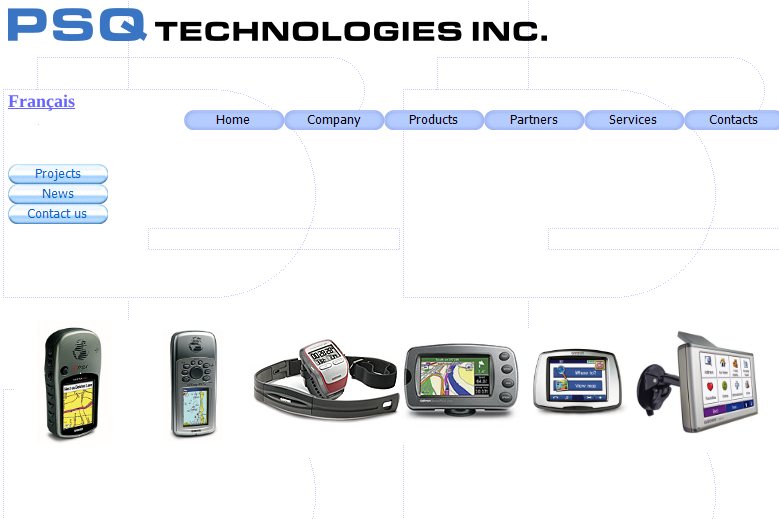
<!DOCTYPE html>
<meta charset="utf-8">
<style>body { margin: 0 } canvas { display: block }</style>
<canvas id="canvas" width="779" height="519"></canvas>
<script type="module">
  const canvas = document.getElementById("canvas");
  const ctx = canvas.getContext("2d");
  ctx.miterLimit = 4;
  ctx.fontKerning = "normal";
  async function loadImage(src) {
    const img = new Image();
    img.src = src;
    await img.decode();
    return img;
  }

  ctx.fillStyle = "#ffffff";
  ctx.fillRect(0, 0, 779, 519);
  ctx.drawImage(await loadImage("img1.png"), 3, 1, 776, 518);
  ctx.drawImage(await loadImage("img2.png"), 8, 8, 539, 33);
  ctx.fillStyle = "#6666ff";
  ctx.fillRect(8, 108, 67, 1);
  ctx.font = "bold 18px Liberation Serif";
  ctx.fillText("Français", 8, 107);
  ctx.drawImage(await loadImage("img3.png"), 184, 110, 100, 20);
  ctx.drawImage(await loadImage("img4.png"), 284, 110, 100, 20);
  ctx.drawImage(await loadImage("img5.png"), 384, 110, 100, 20);
  ctx.drawImage(await loadImage("img6.png"), 484, 110, 100, 20);
  ctx.drawImage(await loadImage("img7.png"), 584, 110, 100, 20);
  ctx.drawImage(await loadImage("img8.png"), 684, 110, 95, 20);
  ctx.drawImage(await loadImage("img9.png"), 8, 164, 100, 20);
  ctx.drawImage(await loadImage("img10.png"), 8, 184, 100, 20);
  ctx.drawImage(await loadImage("img11.png"), 8, 204, 100, 20);
  ctx.drawImage(await loadImage("img12.png"), 15, 321, 120, 123);
  ctx.drawImage(await loadImage("img13.png"), 135, 330, 116, 111);
  ctx.drawImage(await loadImage("img14.png"), 251, 339, 150, 117);
  ctx.drawImage(await loadImage("img15.png"), 401, 343, 119, 101);
  ctx.drawImage(await loadImage("img16.png"), 520, 329, 113, 88);
  ctx.drawImage(await loadImage("img17.png"), 633, 330, 132, 122);
</script>
